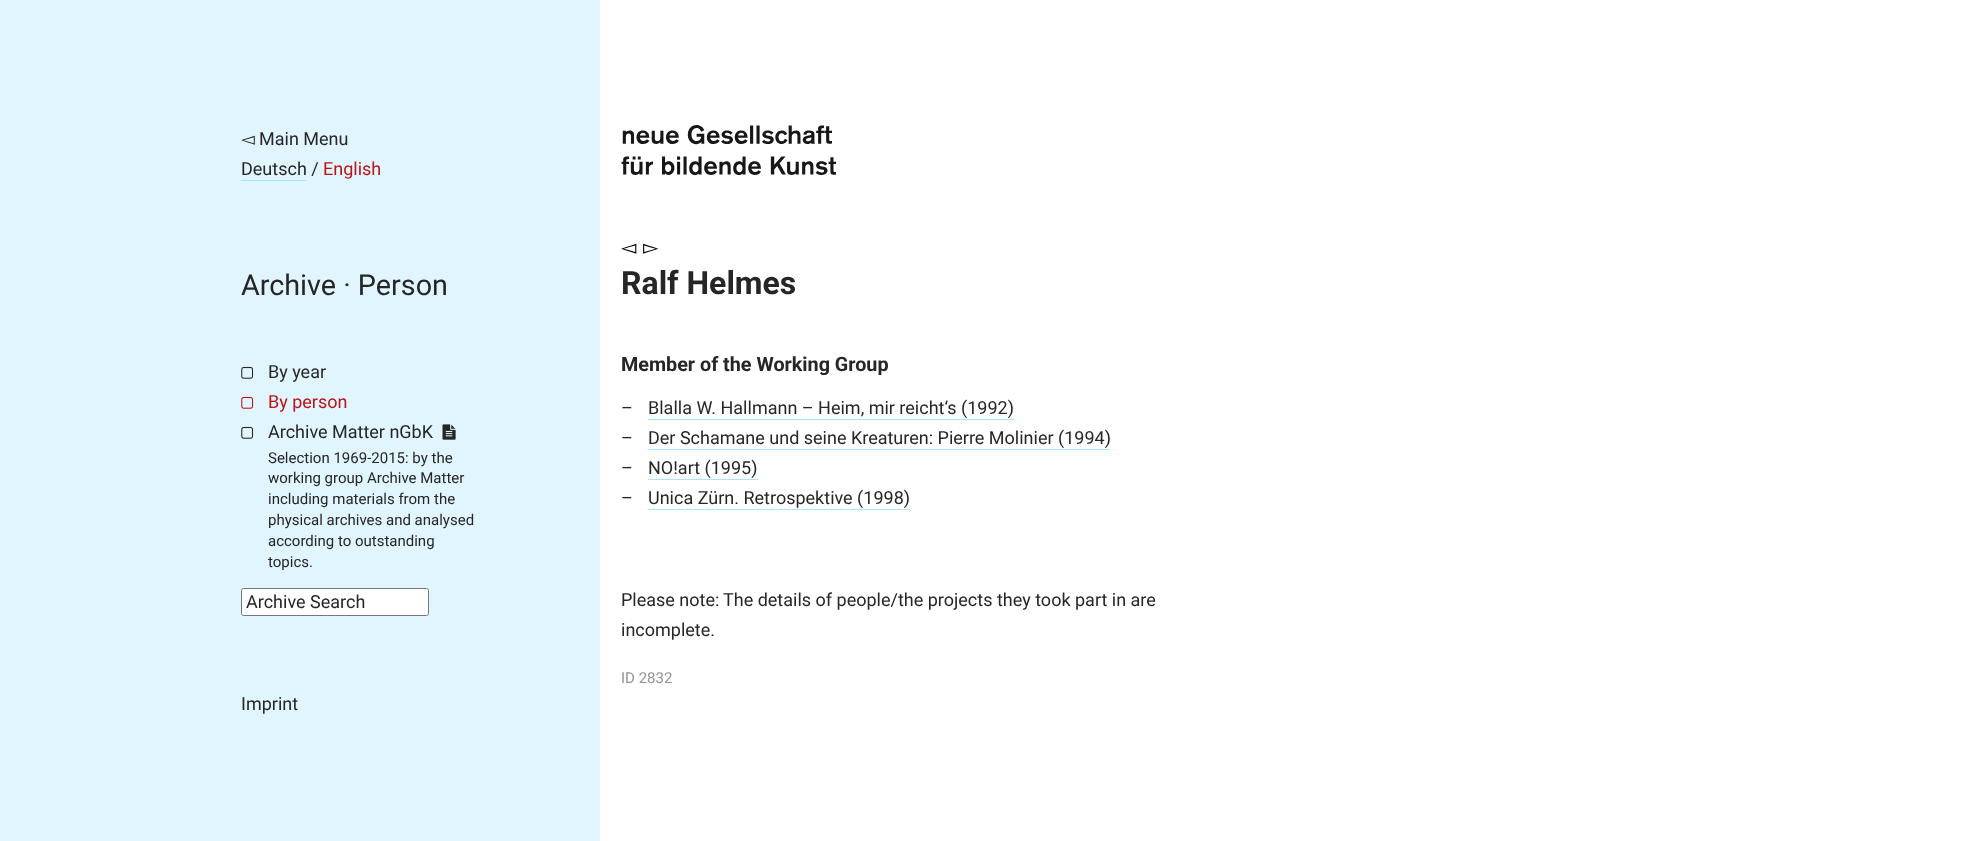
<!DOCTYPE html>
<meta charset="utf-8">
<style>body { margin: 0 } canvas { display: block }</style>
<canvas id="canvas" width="1981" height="841"></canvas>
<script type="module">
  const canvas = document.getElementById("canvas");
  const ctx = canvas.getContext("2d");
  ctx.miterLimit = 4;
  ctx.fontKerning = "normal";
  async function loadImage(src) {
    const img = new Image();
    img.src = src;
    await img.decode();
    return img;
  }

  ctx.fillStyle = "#ffffff";
  ctx.fillRect(0, 0, 1981, 841);
  ctx.fillStyle = "#e1f5ff";
  ctx.fillRect(0, 0, 600, 841);
  ctx.font = "18px DejaVu Sans";
  ctx.fillStyle = "#262626";
  ctx.fillText("◅", 241, 145);
  ctx.font = "18px Roboto";
  ctx.fillText("Main Menu", 259, 145);
  ctx.fillText("Deutsch /", 241, 175);
  ctx.fillStyle = "#aee3ff";
  ctx.fillRect(241, 180, 65, 1);
  ctx.fillStyle = "#b71318";
  ctx.fillText("English", 323, 175);
  ctx.font = "28.75px Roboto";
  ctx.fillStyle = "#262626";
  ctx.fillText("Archive · Person", 241, 295);
  ctx.drawImage(await loadImage("img1.png"), 241, 366, 13, 13);
  ctx.font = "18px Roboto";
  ctx.fillText("By year", 268, 378);
  ctx.drawImage(await loadImage("img2.png"), 241, 396, 13, 13);
  ctx.fillStyle = "#b71318";
  ctx.fillText("By person", 268, 408);
  ctx.drawImage(await loadImage("img1.png"), 241, 426, 13, 13);
  ctx.fillStyle = "#262626";
  ctx.fillText("Archive Matter nGbK", 268, 438);
  ctx.drawImage(await loadImage("img3.png"), 442, 424, 14, 16);
  ctx.font = "15px Roboto";
  ctx.fillText("Selection 1969-2015: by the", 268, 463);
  ctx.fillText("working group Archive Matter", 268, 483);
  ctx.fillText("including materials from the", 268, 504);
  ctx.fillText("physical archives and analysed", 268, 525);
  ctx.fillText("according to outstanding", 268, 546);
  ctx.fillText("topics.", 268, 567);
  ctx.fillStyle = "#ffffff";
  ctx.beginPath();
  ctx.roundRect(241.5, 588.5, 187, 27, 2);
  ctx.fill();
  ctx.strokeStyle = "#767676";
  ctx.stroke();
  ctx.font = "18px Roboto";
  ctx.fillStyle = "#262626";
  ctx.fillText("Archive Search", 246, 608);
  ctx.fillText("Imprint", 241, 710);
  ctx.drawImage(await loadImage("img4.png"), 621, 125, 215, 50);
  ctx.font = "20px DejaVu Sans";
  ctx.fillStyle = "#000000";
  ctx.fillText("◅", 621, 254);
  ctx.fillText("▻", 643, 254);
  ctx.font = "bold 32px Roboto";
  ctx.fillStyle = "#262626";
  ctx.fillText("Ralf Helmes", 621, 294);
  ctx.font = "bold 19.75px Roboto";
  ctx.fillText("Member of the Working Group", 621, 371);
  ctx.font = "18px Roboto";
  ctx.fillText("–", 621, 414);
  ctx.fillText("Blalla W. Hallmann – Heim, mir reicht‘s (1992)", 648, 414);
  ctx.fillStyle = "#aee3ff";
  ctx.fillRect(648, 419, 366, 1);
  ctx.fillStyle = "#262626";
  ctx.fillText("–", 621, 444);
  ctx.fillText("Der Schamane und seine Kreaturen: Pierre Molinier (1994)", 648, 444);
  ctx.fillStyle = "#aee3ff";
  ctx.fillRect(648, 449, 462, 1);
  ctx.fillStyle = "#262626";
  ctx.fillText("–", 621, 474);
  ctx.fillText("NO!art (1995)", 648, 474);
  ctx.fillStyle = "#aee3ff";
  ctx.fillRect(648, 479, 110, 1);
  ctx.fillStyle = "#262626";
  ctx.fillText("–", 621, 504);
  ctx.fillText("Unica Zürn. Retrospektive (1998)", 648, 504);
  ctx.fillStyle = "#aee3ff";
  ctx.fillRect(648, 509, 262, 1);
  ctx.fillStyle = "#262626";
  ctx.fillText("Please note:", 621, 606);
  ctx.fillText("The details of people/the projects they took part in are", 723, 606);
  ctx.fillText("incomplete.", 621, 636);
  ctx.font = "15px Roboto";
  ctx.fillStyle = "#939393";
  ctx.fillText("ID 2832", 621, 683);
</script>
